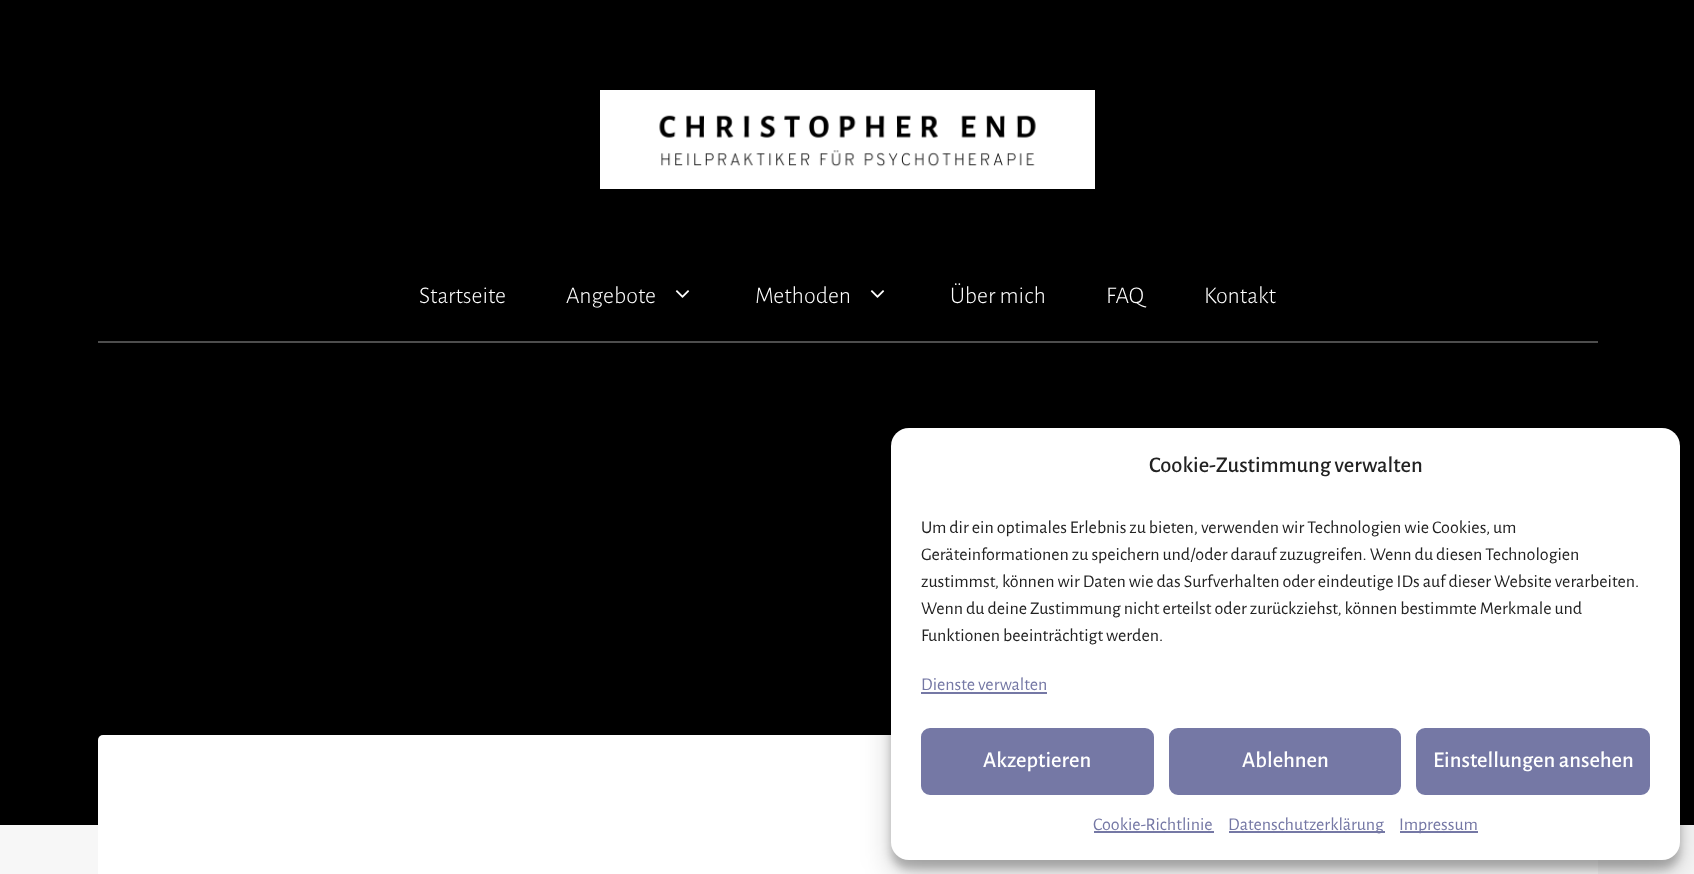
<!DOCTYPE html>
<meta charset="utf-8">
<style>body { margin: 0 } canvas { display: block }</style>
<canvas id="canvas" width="1694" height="874"></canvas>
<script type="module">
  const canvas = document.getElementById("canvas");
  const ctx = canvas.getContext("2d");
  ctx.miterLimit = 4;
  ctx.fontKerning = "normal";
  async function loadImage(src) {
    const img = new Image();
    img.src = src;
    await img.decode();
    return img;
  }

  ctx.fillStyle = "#f7f7f7";
  ctx.fillRect(0, 0, 1694, 874);
  ctx.fillStyle = "#000000";
  ctx.fillRect(0, 0, 1694, 825);
  ctx.drawImage(await loadImage("img1.png"), 600, 90, 495, 99);
  ctx.fillStyle = "#4d4d4d";
  ctx.fillRect(98, 341, 1500, 2);
  ctx.font = "300 24px Alegreya Sans";
  ctx.fillStyle = "#ffffff";
  ctx.fillText("Startseite", 419, 303);
  ctx.fillText("Angebote", 566, 303);
  ctx.drawImage(await loadImage("img2.png"), 675, 290, 15, 8);
  ctx.fillText("Methoden", 755, 303);
  ctx.drawImage(await loadImage("img2.png"), 870, 290, 15, 8);
  ctx.fillText("Über mich", 950, 303);
  ctx.fillText("FAQ", 1106, 303);
  ctx.fillText("Kontakt", 1204, 303);
  ctx.beginPath();
  ctx.roundRect(98, 735, 1500, 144, 5);
  ctx.fill();
  ctx.fillStyle = "rgba(0, 0, 0, 0.23)";
  ctx.filter = "blur(4.5px)";
  ctx.beginPath();
  ctx.roundRect(891, 437, 789, 432, 18);
  ctx.fill();
  ctx.filter = "none";
  ctx.fillStyle = "rgba(0, 0, 0, 0.19)";
  ctx.filter = "blur(15px)";
  ctx.beginPath();
  ctx.roundRect(891, 443, 789, 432, 18);
  ctx.fill();
  ctx.filter = "none";
  ctx.fillStyle = "#ffffff";
  ctx.beginPath();
  ctx.roundRect(891, 428, 789, 432, 18);
  ctx.fill();
  ctx.font = "500 22.5px Alegreya Sans";
  ctx.fillStyle = "#222222";
  ctx.fillText("Cookie-Zustimmung verwalten", 1149, 472);
  ctx.font = "18px Alegreya Sans";
  ctx.fillText("Um dir ein optimales Erlebnis zu bieten, verwenden wir Technologien wie Cookies, um", 921, 533);
  ctx.fillText("Geräteinformationen zu speichern und/oder darauf zuzugreifen. Wenn du diesen Technologien", 921, 560);
  ctx.fillText("zustimmst, können wir Daten wie das Surfverhalten oder eindeutige IDs auf dieser Website verarbeiten.", 921, 587);
  ctx.fillText("Wenn du deine Zustimmung nicht erteilst oder zurückziehst, können bestimmte Merkmale und", 921, 614);
  ctx.fillText("Funktionen beeinträchtigt werden.", 921, 641);
  ctx.fillStyle = "#7578a5";
  ctx.fillText("Dienste verwalten", 921, 690);
  ctx.fillRect(921, 692, 126, 2);
  ctx.beginPath();
  ctx.roundRect(922, 729, 231, 65, 8);
  ctx.fill();
  ctx.strokeStyle = "#7578a5";
  ctx.lineWidth = 2;
  ctx.stroke();
  ctx.font = "500 22.5px Alegreya Sans";
  ctx.fillStyle = "#ffffff";
  ctx.fillText("Akzeptieren", 983, 767);
  ctx.fillStyle = "#7578a5";
  ctx.beginPath();
  ctx.roundRect(1170, 729, 230, 65, 8);
  ctx.fill();
  ctx.stroke();
  ctx.fillStyle = "#ffffff";
  ctx.fillText("Ablehnen", 1242, 767);
  ctx.fillStyle = "#7578a5";
  ctx.beginPath();
  ctx.roundRect(1417, 729, 232, 65, 8);
  ctx.fill();
  ctx.stroke();
  ctx.fillStyle = "#ffffff";
  ctx.fillText("Einstellungen ansehen", 1433, 767);
  ctx.font = "18px Alegreya Sans";
  ctx.fillStyle = "#7578a5";
  ctx.fillText("Cookie-Richtlinie", 1093, 830);
  ctx.fillRect(1094, 831, 120, 2);
  ctx.fillRect(1229, 831, 156, 2);
  ctx.fillText("Datenschutzerklärung", 1228, 830);
  ctx.fillRect(1400, 831, 78, 2);
  ctx.fillText("Impressum", 1399, 830);
</script>
